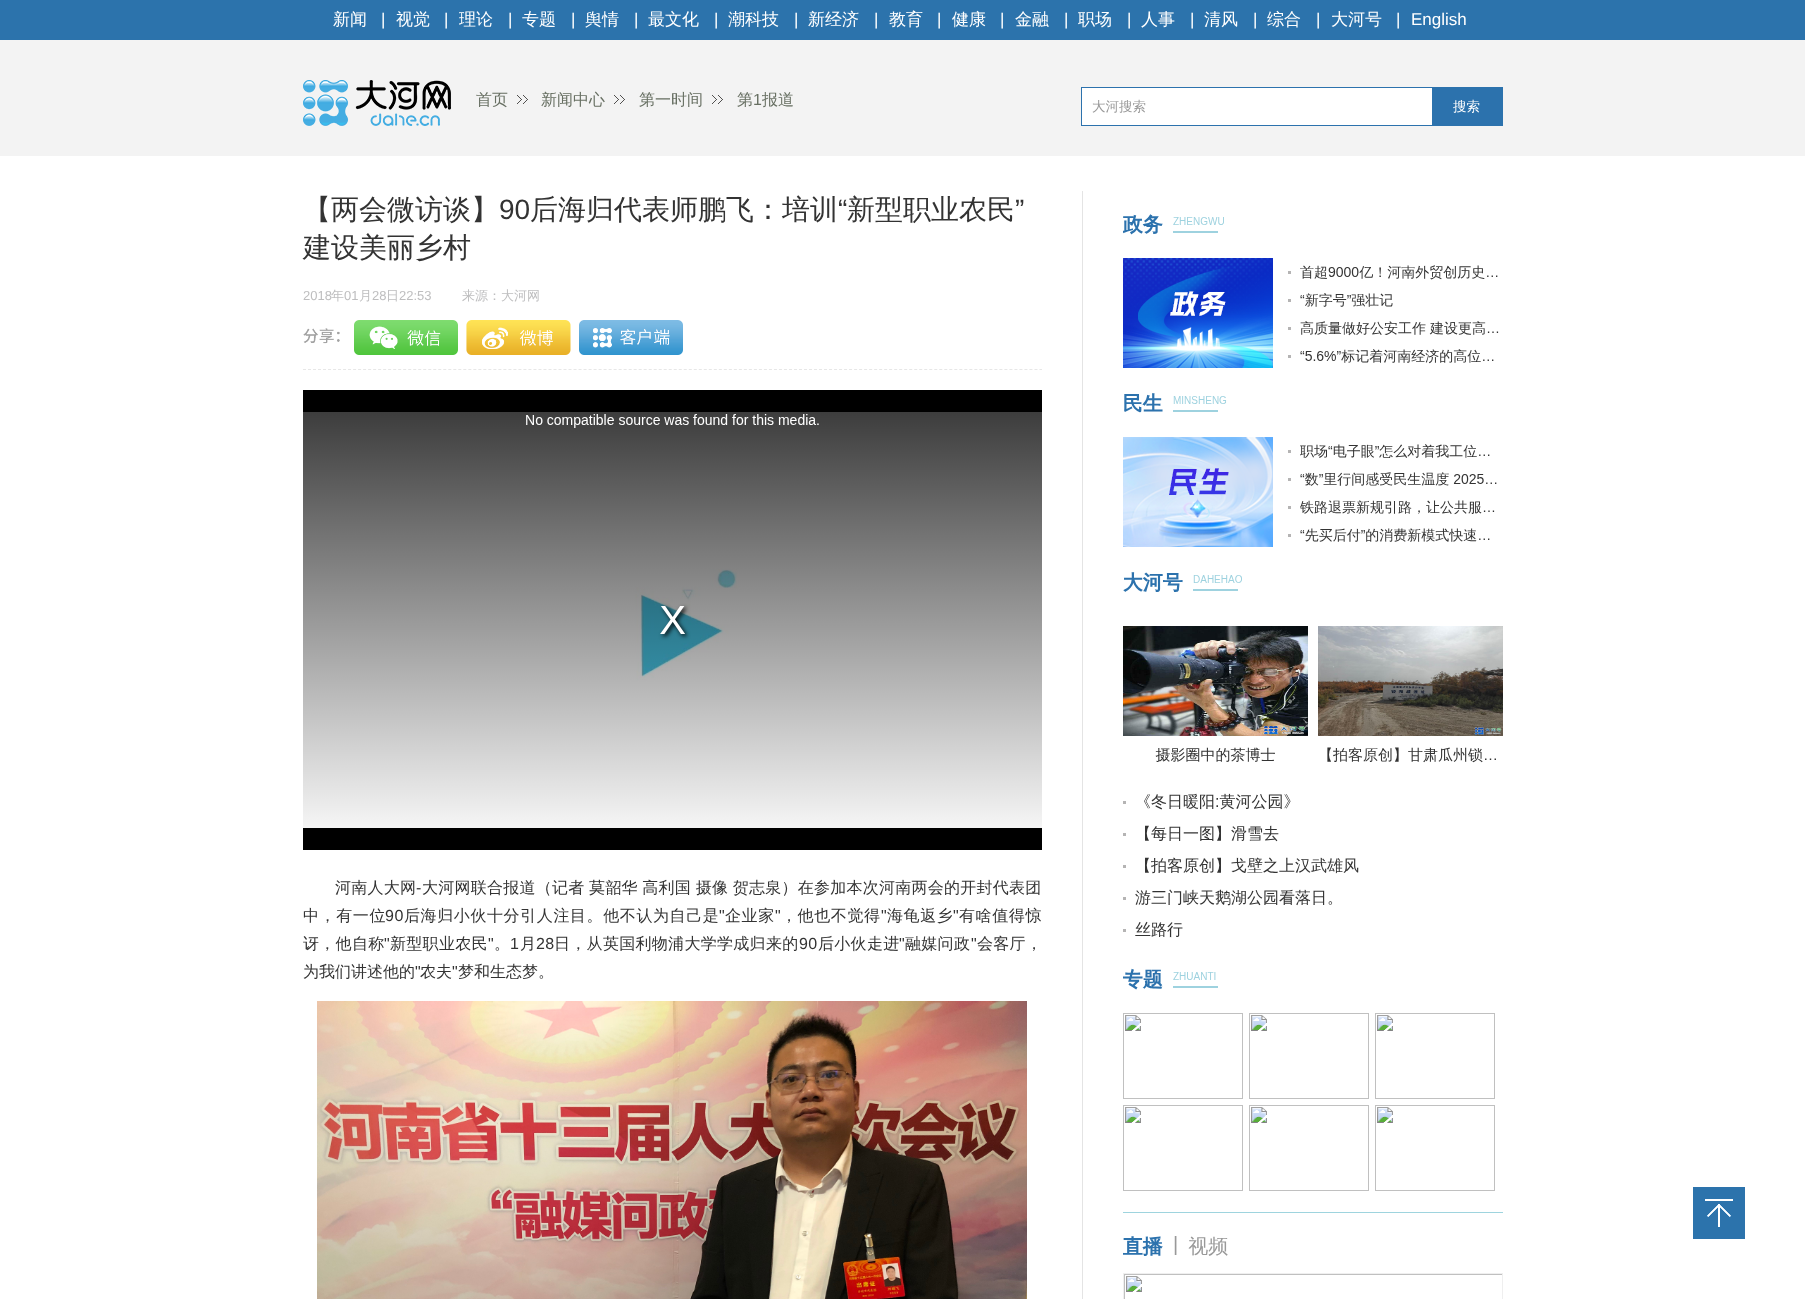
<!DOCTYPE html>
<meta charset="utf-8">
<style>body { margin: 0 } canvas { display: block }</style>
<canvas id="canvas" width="1805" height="1299"></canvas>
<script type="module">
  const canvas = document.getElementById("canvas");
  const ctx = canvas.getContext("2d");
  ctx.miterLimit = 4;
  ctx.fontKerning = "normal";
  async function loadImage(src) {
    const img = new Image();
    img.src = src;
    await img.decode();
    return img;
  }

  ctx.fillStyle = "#ffffff";
  ctx.fillRect(0, 0, 1805, 1299);
  ctx.fillStyle = "#2c73ac";
  ctx.fillRect(0, 0, 1805, 40);
  ctx.font = "500 17px WenQuanYi Zen Hei";
  ctx.fillStyle = "#ffffff";
  ctx.fillText("新闻", 333, 25);
  ctx.font = "17px Liberation Sans";
  ctx.fillText("|", 381, 25);
  ctx.font = "500 17px WenQuanYi Zen Hei";
  ctx.fillText("视觉", 396, 25);
  ctx.font = "17px Liberation Sans";
  ctx.fillText("|", 444, 25);
  ctx.font = "500 17px WenQuanYi Zen Hei";
  ctx.fillText("理论", 459, 25);
  ctx.font = "17px Liberation Sans";
  ctx.fillText("|", 508, 25);
  ctx.font = "500 17px WenQuanYi Zen Hei";
  ctx.fillText("专题", 522, 25);
  ctx.font = "17px Liberation Sans";
  ctx.fillText("|", 571, 25);
  ctx.font = "500 17px WenQuanYi Zen Hei";
  ctx.fillText("舆情", 585, 25);
  ctx.font = "17px Liberation Sans";
  ctx.fillText("|", 634, 25);
  ctx.font = "500 17px WenQuanYi Zen Hei";
  ctx.fillText("最文化", 648, 25);
  ctx.font = "17px Liberation Sans";
  ctx.fillText("|", 714, 25);
  ctx.font = "500 17px WenQuanYi Zen Hei";
  ctx.fillText("潮科技", 728, 25);
  ctx.font = "17px Liberation Sans";
  ctx.fillText("|", 794, 25);
  ctx.font = "500 17px WenQuanYi Zen Hei";
  ctx.fillText("新经济", 808, 25);
  ctx.font = "17px Liberation Sans";
  ctx.fillText("|", 874, 25);
  ctx.font = "500 17px WenQuanYi Zen Hei";
  ctx.fillText("教育", 889, 25);
  ctx.font = "17px Liberation Sans";
  ctx.fillText("|", 937, 25);
  ctx.font = "500 17px WenQuanYi Zen Hei";
  ctx.fillText("健康", 952, 25);
  ctx.font = "17px Liberation Sans";
  ctx.fillText("|", 1000, 25);
  ctx.font = "500 17px WenQuanYi Zen Hei";
  ctx.fillText("金融", 1015, 25);
  ctx.font = "17px Liberation Sans";
  ctx.fillText("|", 1064, 25);
  ctx.font = "500 17px WenQuanYi Zen Hei";
  ctx.fillText("职场", 1078, 25);
  ctx.font = "17px Liberation Sans";
  ctx.fillText("|", 1127, 25);
  ctx.font = "500 17px WenQuanYi Zen Hei";
  ctx.fillText("人事", 1141, 25);
  ctx.font = "17px Liberation Sans";
  ctx.fillText("|", 1190, 25);
  ctx.font = "500 17px WenQuanYi Zen Hei";
  ctx.fillText("清风", 1204, 25);
  ctx.font = "17px Liberation Sans";
  ctx.fillText("|", 1253, 25);
  ctx.font = "500 17px WenQuanYi Zen Hei";
  ctx.fillText("综合", 1267, 25);
  ctx.font = "17px Liberation Sans";
  ctx.fillText("|", 1316, 25);
  ctx.font = "500 17px WenQuanYi Zen Hei";
  ctx.fillText("大河号", 1331, 25);
  ctx.font = "17px Liberation Sans";
  ctx.fillText("|", 1396, 25);
  ctx.fillText("English", 1411, 25);
  ctx.fillStyle = "#f3f3f3";
  ctx.fillRect(0, 40, 1805, 116);
  ctx.drawImage(await loadImage("img1.png"), 517, 95, 11, 9);
  ctx.drawImage(await loadImage("img2.png"), 303, 80, 148, 46);
  ctx.font = "500 16px WenQuanYi Zen Hei";
  ctx.fillStyle = "#676f62";
  ctx.fillText("首页", 476, 105);
  ctx.fillText("新闻中心", 541, 105);
  ctx.drawImage(await loadImage("img1.png"), 614, 95, 11, 9);
  ctx.fillText("第一时间", 639, 105);
  ctx.drawImage(await loadImage("img1.png"), 712, 95, 11, 9);
  ctx.fillText("第", 737, 105);
  ctx.font = "16px Liberation Sans";
  ctx.fillText("1", 753, 105);
  ctx.font = "500 16px WenQuanYi Zen Hei";
  ctx.fillText("报道", 762, 105);
  ctx.strokeStyle = "#2c72ad";
  ctx.strokeRect(1081.5, 87.5, 421, 38);
  ctx.fillStyle = "#ffffff";
  ctx.fillRect(1082, 88, 350, 37);
  ctx.font = "500 13.5px WenQuanYi Zen Hei";
  ctx.fillStyle = "#999999";
  ctx.fillText("大河搜索", 1092, 111);
  ctx.fillStyle = "#2c72ad";
  ctx.fillRect(1432, 88, 70, 37);
  ctx.fillStyle = "#ffffff";
  ctx.fillText("搜索", 1453, 111);
  ctx.fillStyle = "#e4e4e4";
  ctx.fillRect(1082, 191, 1, 1108);
  ctx.font = "500 28px WenQuanYi Zen Hei";
  ctx.fillStyle = "#333333";
  ctx.fillText("【两会微访谈】", 303, 219);
  ctx.font = "28px Liberation Sans";
  ctx.fillText("90", 499, 219);
  ctx.font = "500 28px WenQuanYi Zen Hei";
  ctx.fillText("后海归代表师鹏飞：培训", 530, 219);
  ctx.font = "28px Liberation Sans";
  ctx.fillText("“", 838, 219);
  ctx.font = "500 28px WenQuanYi Zen Hei";
  ctx.fillText("新型职业农民", 847, 219);
  ctx.font = "28px Liberation Sans";
  ctx.fillText("”", 1015, 219);
  ctx.font = "500 28px WenQuanYi Zen Hei";
  ctx.fillText("建设美丽乡村", 303, 257);
  ctx.font = "13px Liberation Sans";
  ctx.fillStyle = "#bebebf";
  ctx.fillText("2018", 303, 300);
  ctx.font = "500 13px WenQuanYi Zen Hei";
  ctx.fillText("年", 331, 300);
  ctx.font = "13px Liberation Sans";
  ctx.fillText("01", 344, 300);
  ctx.font = "500 13px WenQuanYi Zen Hei";
  ctx.fillText("月", 359, 300);
  ctx.font = "13px Liberation Sans";
  ctx.fillText("28", 372, 300);
  ctx.font = "500 13px WenQuanYi Zen Hei";
  ctx.fillText("日", 386, 300);
  ctx.font = "13px Liberation Sans";
  ctx.fillText("22:53", 399, 300);
  ctx.font = "500 13px WenQuanYi Zen Hei";
  ctx.fillText("来源：大河网", 462, 300);
  ctx.drawImage(await loadImage("img3.png"), 303, 320, 380, 35);
  ctx.beginPath();
  ctx.moveTo(303, 369.5);
  ctx.lineTo(1042, 369.5);
  ctx.strokeStyle = "#e7e7e7";
  ctx.setLineDash([3, 2.01]);
  ctx.stroke();
  ctx.drawImage(await loadImage("img4.png"), 303, 390, 739, 460);
  ctx.letterSpacing = "0.25px";
  ctx.font = "500 16px WenQuanYi Zen Hei";
  ctx.fillStyle = "#333333";
  ctx.fillText("河南人大网", 335, 893);
  ctx.font = "16px Liberation Sans";
  ctx.fillText("-", 416, 893);
  ctx.wordSpacing = "-0.5px";
  ctx.font = "500 16px WenQuanYi Zen Hei";
  ctx.fillText("大河网联合报道（记者 莫韶华 高利国 摄像 贺志泉）在参加本次河南两会的开封代表团", 422, 893);
  ctx.letterSpacing = "0.6px";
  ctx.wordSpacing = "0px";
  ctx.fillText("中，有一位", 303, 921);
  ctx.font = "16px Liberation Sans";
  ctx.fillText("90", 385, 921);
  ctx.font = "500 16px WenQuanYi Zen Hei";
  ctx.fillText("后海归小伙十分引人注目。他不认为自己是", 404, 921);
  ctx.font = "16px Liberation Sans";
  ctx.fillText("\"", 719, 921);
  ctx.font = "500 16px WenQuanYi Zen Hei";
  ctx.fillText("企业家", 725, 921);
  ctx.font = "16px Liberation Sans";
  ctx.fillText("\"", 775, 921);
  ctx.font = "500 16px WenQuanYi Zen Hei";
  ctx.fillText("，他也不觉得", 781, 921);
  ctx.font = "16px Liberation Sans";
  ctx.fillText("\"", 881, 921);
  ctx.font = "500 16px WenQuanYi Zen Hei";
  ctx.fillText("海龟返乡", 887, 921);
  ctx.font = "16px Liberation Sans";
  ctx.fillText("\"", 953, 921);
  ctx.font = "500 16px WenQuanYi Zen Hei";
  ctx.fillText("有啥值得惊", 959, 921);
  ctx.letterSpacing = "0.3px";
  ctx.fillText("讶，他自称", 303, 949);
  ctx.font = "16px Liberation Sans";
  ctx.fillText("\"", 384, 949);
  ctx.font = "500 16px WenQuanYi Zen Hei";
  ctx.fillText("新型职业农民", 390, 949);
  ctx.font = "16px Liberation Sans";
  ctx.fillText("\"", 488, 949);
  ctx.fillText("1", 510, 949);
  ctx.font = "500 16px WenQuanYi Zen Hei";
  ctx.fillText("月", 520, 949);
  ctx.font = "16px Liberation Sans";
  ctx.fillText("28", 536, 949);
  ctx.font = "500 16px WenQuanYi Zen Hei";
  ctx.fillText("日，从英国利物浦大学学成归来的", 554, 949);
  ctx.font = "16px Liberation Sans";
  ctx.fillText("90", 799, 949);
  ctx.font = "500 16px WenQuanYi Zen Hei";
  ctx.fillText("后小伙走进", 818, 949);
  ctx.font = "16px Liberation Sans";
  ctx.fillText("\"", 899, 949);
  ctx.font = "500 16px WenQuanYi Zen Hei";
  ctx.fillText("融媒问政", 905, 949);
  ctx.font = "16px Liberation Sans";
  ctx.fillText("\"", 971, 949);
  ctx.font = "500 16px WenQuanYi Zen Hei";
  ctx.fillText("会客厅，", 977, 949);
  ctx.fillText("。", 494, 949);
  ctx.letterSpacing = "0px";
  ctx.fillText("为我们讲述他的", 303, 977);
  ctx.font = "16px Liberation Sans";
  ctx.fillText("\"", 415, 977);
  ctx.font = "500 16px WenQuanYi Zen Hei";
  ctx.fillText("农夫", 420, 977);
  ctx.font = "16px Liberation Sans";
  ctx.fillText("\"", 452, 977);
  ctx.font = "500 16px WenQuanYi Zen Hei";
  ctx.fillText("梦和生态梦。", 458, 977);
  ctx.drawImage(await loadImage("img5.png"), 317, 1001, 710, 298);
  ctx.drawImage(await loadImage("img6.png"), 1123, 214, 380, 1085);
  ctx.drawImage(await loadImage("img7.png"), 1693, 1187, 52, 52);
</script>
